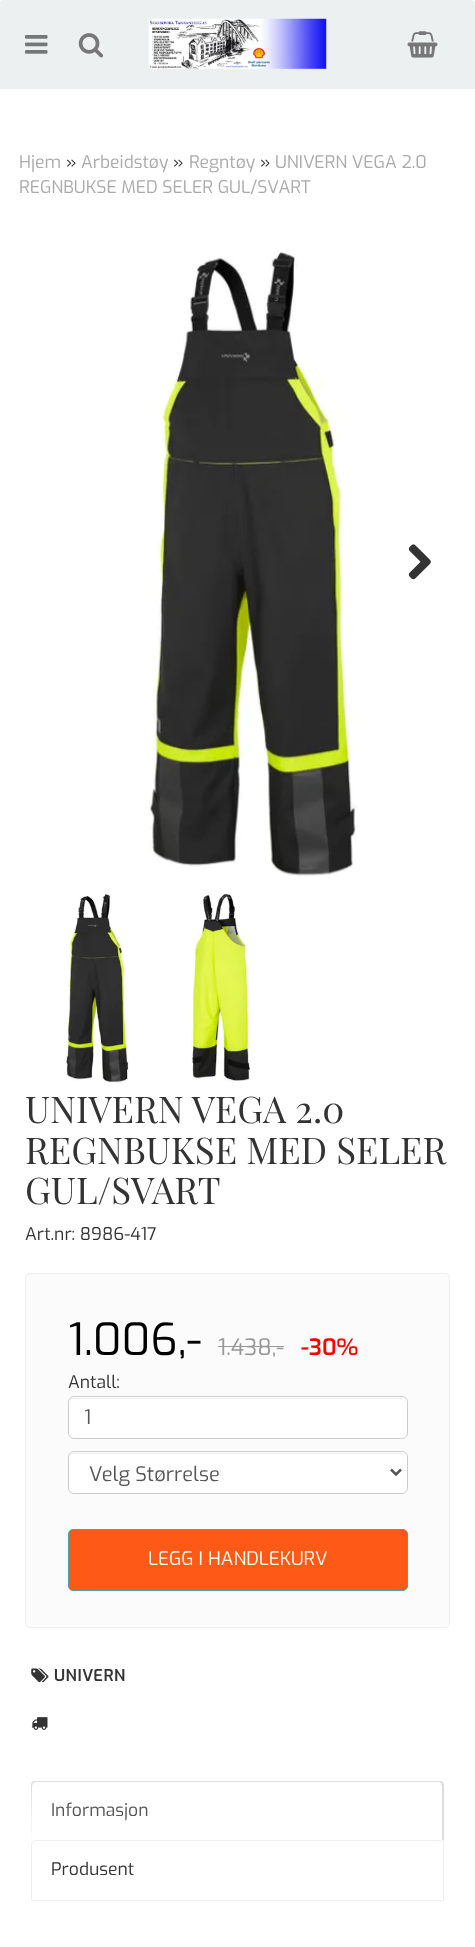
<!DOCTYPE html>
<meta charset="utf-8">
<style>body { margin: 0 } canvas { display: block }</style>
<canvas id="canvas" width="475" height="1947"></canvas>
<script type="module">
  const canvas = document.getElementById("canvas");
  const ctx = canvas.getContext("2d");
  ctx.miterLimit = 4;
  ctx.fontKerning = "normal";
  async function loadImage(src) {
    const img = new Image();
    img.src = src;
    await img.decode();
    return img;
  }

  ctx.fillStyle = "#ffffff";
  ctx.fillRect(0, 0, 475, 1947);
  ctx.fillStyle = "#ecf0f1";
  ctx.beginPath();
  ctx.roundRect(0, 0, 475, 89, [4, 4, 0, 0]);
  ctx.fill();
  ctx.drawImage(await loadImage("img1.png"), 25, 35, 23, 19);
  ctx.drawImage(await loadImage("img2.png"), 78, 33, 26, 25);
  ctx.drawImage(await loadImage("img3.png"), 148, 18, 179, 51);
  ctx.drawImage(await loadImage("img4.png"), 407, 31, 31, 27);
  ctx.font = "17.5px Exo";
  ctx.fillStyle = "#aaaaaa";
  ctx.fillText("Hjem", 19, 168);
  ctx.fillStyle = "#333333";
  ctx.fillText("»", 66, 168);
  ctx.fillStyle = "#aaaaaa";
  ctx.fillText("Arbeidstøy", 81, 168);
  ctx.fillStyle = "#333333";
  ctx.fillText("»", 173, 168);
  ctx.fillStyle = "#aaaaaa";
  ctx.fillText("Regntøy", 189, 168);
  ctx.fillStyle = "#333333";
  ctx.fillText("»", 260, 168);
  ctx.fillStyle = "#aaaaaa";
  ctx.fillText("UNIVERN VEGA 2.0", 275, 168);
  ctx.fillText("REGNBUKSE MED SELER GUL/SVART", 19, 193);
  ctx.drawImage(await loadImage("img5.png"), 149, 251, 209, 626);
  ctx.drawImage(await loadImage("img6.png"), 408, 544, 23, 36);
  ctx.drawImage(await loadImage("img7.png"), 66, 894, 63, 190);
  ctx.drawImage(await loadImage("img8.png"), 191, 894, 61, 187);
  ctx.font = "36.75px Playfair Display";
  ctx.fillStyle = "#333333";
  ctx.fillText("UNIVERN VEGA 2.0", 25, 1123);
  ctx.fillText("REGNBUKSE MED SELER", 25, 1164);
  ctx.fillText("GUL/SVART", 25, 1204);
  ctx.font = "17.5px Exo";
  ctx.fillText("Art.nr: 8986-417", 25, 1240);
  ctx.fillStyle = "#fbfbfb";
  ctx.beginPath();
  ctx.roundRect(25.5, 1273.5, 424, 354, 4.5);
  ctx.fill();
  ctx.strokeStyle = "#efefef";
  ctx.stroke();
  ctx.font = "44px Exo";
  ctx.fillStyle = "#000000";
  ctx.fillText("1.006,-", 68, 1355);
  ctx.font = "22.5px Exo";
  ctx.fillStyle = "#989898";
  ctx.fillText("1.438,-", 218, 1355);
  ctx.fillRect(218, 1346, 66, 1);
  ctx.font = "600 22.5px Exo";
  ctx.fillStyle = "#ff0000";
  ctx.fillText("-30%", 301, 1355);
  ctx.font = "17.5px Exo";
  ctx.fillStyle = "#333333";
  ctx.fillText("Antall:", 68, 1388);
  ctx.fillStyle = "#ffffff";
  ctx.beginPath();
  ctx.roundRect(68, 1396, 340, 43, 6);
  ctx.fill();
  ctx.fillStyle = "#ececec";
  ctx.beginPath();
  ctx.moveTo(74, 1399);
  ctx.lineTo(401, 1399);
  ctx.bezierCurveTo(404, 1399, 406, 1401, 406, 1404);
  ctx.bezierCurveTo(406, 1401, 404, 1398, 401, 1398);
  ctx.lineTo(74, 1398);
  ctx.bezierCurveTo(71, 1398, 69, 1401, 69, 1404);
  ctx.bezierCurveTo(69, 1401, 71, 1399, 74, 1399);
  ctx.closePath();
  ctx.fill();
  ctx.beginPath();
  ctx.roundRect(68.5, 1396.5, 339, 42, 5.5);
  ctx.strokeStyle = "#cccccc";
  ctx.stroke();
  ctx.font = "20px Exo";
  ctx.fillStyle = "#555555";
  ctx.fillText("1", 84, 1424);
  ctx.fillStyle = "#ffffff";
  ctx.beginPath();
  ctx.roundRect(68, 1451, 340, 43, 6);
  ctx.fill();
  ctx.fillStyle = "#ececec";
  ctx.beginPath();
  ctx.moveTo(74, 1454);
  ctx.lineTo(401, 1454);
  ctx.bezierCurveTo(404, 1454, 406, 1456, 406, 1459);
  ctx.bezierCurveTo(406, 1456, 404, 1453, 401, 1453);
  ctx.lineTo(74, 1453);
  ctx.bezierCurveTo(71, 1453, 69, 1456, 69, 1459);
  ctx.bezierCurveTo(69, 1456, 71, 1454, 74, 1454);
  ctx.closePath();
  ctx.fill();
  ctx.beginPath();
  ctx.roundRect(68.5, 1451.5, 339, 42, 5.5);
  ctx.stroke();
  ctx.beginPath();
  ctx.moveTo(391, 1469.5);
  ctx.lineTo(396, 1474.5);
  ctx.lineTo(401, 1469.5);
  ctx.strokeStyle = "#555555";
  ctx.lineWidth = 2.5;
  ctx.stroke();
  ctx.fillStyle = "#555555";
  ctx.fillText("Velg Størrelse", 89, 1481);
  ctx.fillStyle = "#ff5917";
  ctx.beginPath();
  ctx.roundRect(68.5, 1529.5, 339, 61, 4.5);
  ctx.fill();
  ctx.strokeStyle = "#41a6a6";
  ctx.lineWidth = 1;
  ctx.stroke();
  ctx.font = "18.75px Exo";
  ctx.fillStyle = "#ffffee";
  ctx.fillText("LEGG I HANDLEKURV", 148, 1565);
  ctx.drawImage(await loadImage("img9.png"), 31, 1668, 18, 15);
  ctx.letterSpacing = "0.5px";
  ctx.font = "600 16.25px Exo";
  ctx.fillStyle = "#333333";
  ctx.fillText("UNIVERN", 54, 1681);
  ctx.drawImage(await loadImage("img10.png"), 31, 1717, 17, 13);
  ctx.fillStyle = "#dddddd";
  ctx.beginPath();
  ctx.moveTo(36, 1782);
  ctx.lineTo(33, 1783);
  ctx.lineTo(32, 1782);
  ctx.lineTo(34, 1781);
  ctx.lineTo(441, 1781);
  ctx.lineTo(443, 1782);
  ctx.lineTo(441, 1784);
  ctx.bezierCurveTo(441, 1783, 440, 1782, 439, 1782);
  ctx.closePath();
  ctx.fill();
  ctx.beginPath();
  ctx.moveTo(444, 1841);
  ctx.lineTo(442, 1840);
  ctx.lineTo(442, 1786);
  ctx.lineTo(441, 1784);
  ctx.lineTo(443, 1782);
  ctx.lineTo(444, 1784);
  ctx.closePath();
  ctx.fill();
  ctx.beginPath();
  ctx.moveTo(31, 1784);
  ctx.lineTo(32, 1782);
  ctx.lineTo(33, 1783);
  ctx.lineTo(32, 1786);
  ctx.lineTo(32, 1840);
  ctx.lineTo(32, 1841);
  ctx.closePath();
  ctx.fill();
  ctx.letterSpacing = "0px";
  ctx.font = "17.5px Exo";
  ctx.fillStyle = "#555555";
  ctx.fillText("Informasjon", 51, 1816);
  ctx.beginPath();
  ctx.roundRect(31.5, 1840.5, 412, 60, [4.5, 4.5, 0, 0]);
  ctx.strokeStyle = "#eeeeee";
  ctx.stroke();
  ctx.fillStyle = "#333333";
  ctx.fillText("Produsent", 51, 1875);
</script>
